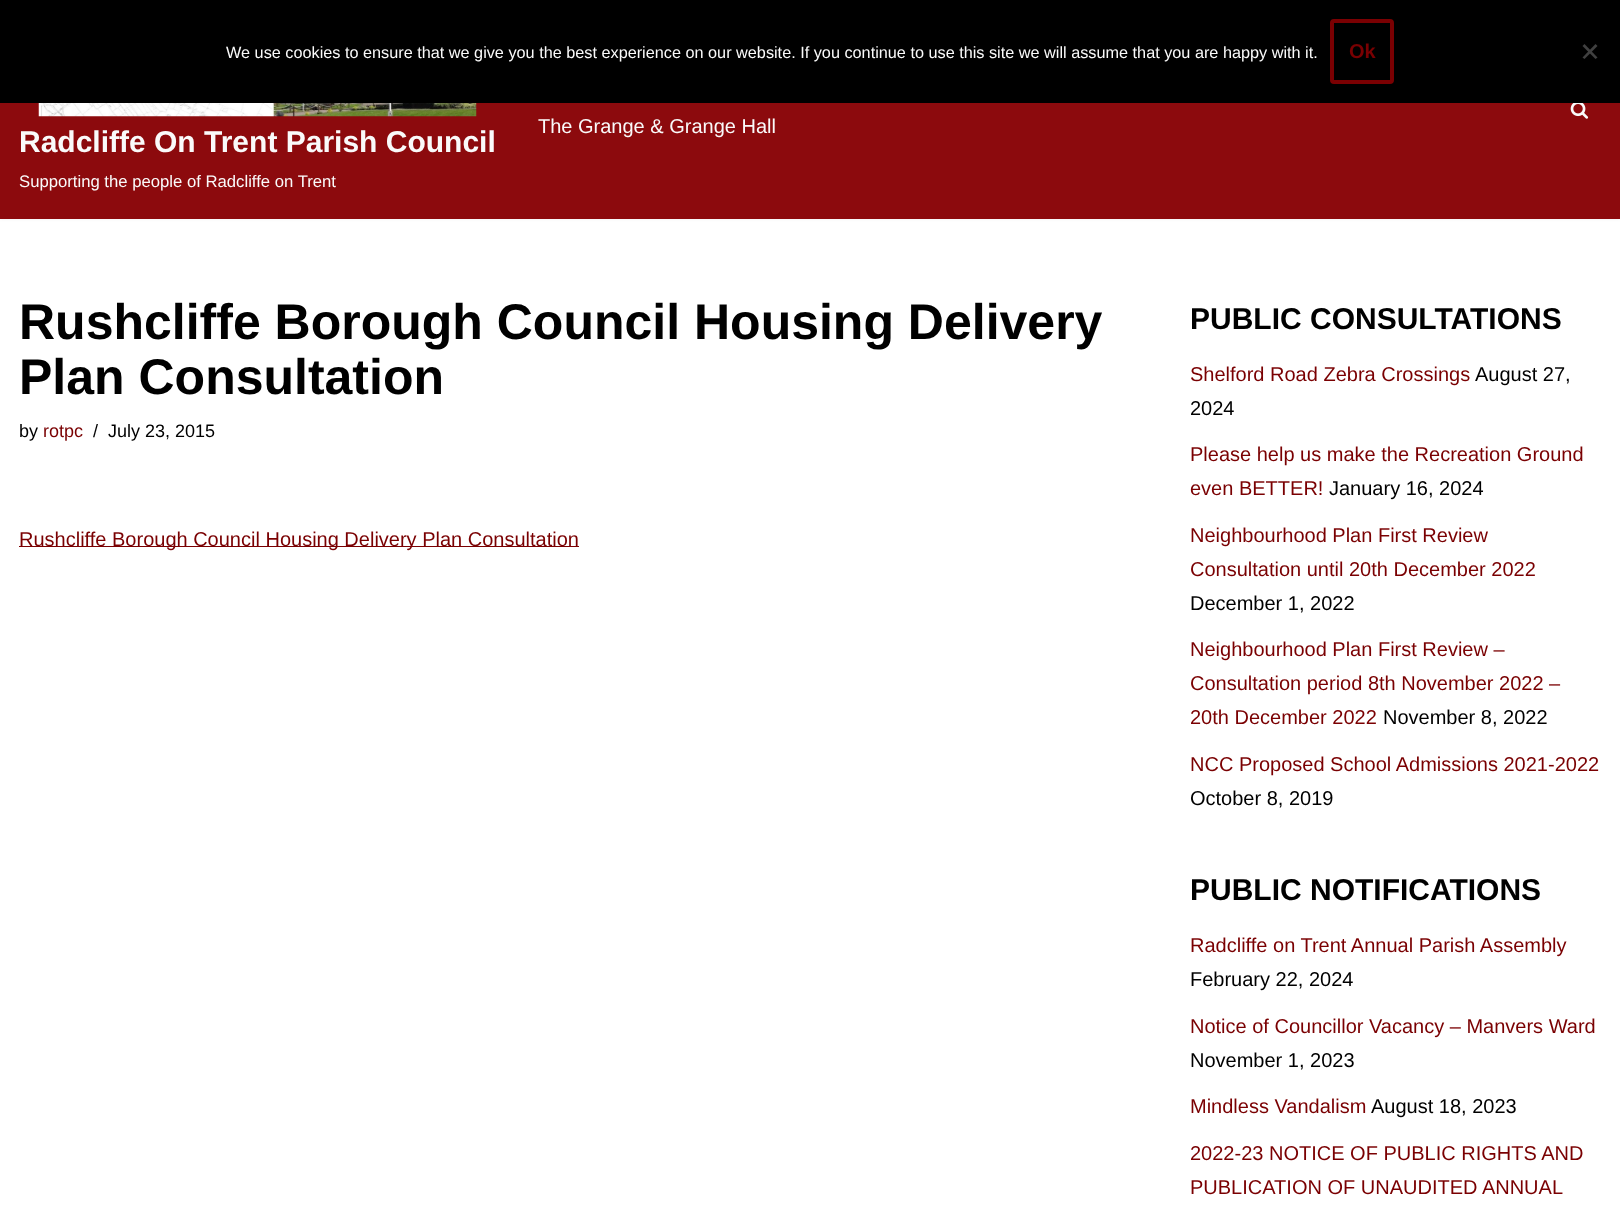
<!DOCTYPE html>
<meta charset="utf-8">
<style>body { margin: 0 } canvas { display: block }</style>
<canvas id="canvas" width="1620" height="1213"></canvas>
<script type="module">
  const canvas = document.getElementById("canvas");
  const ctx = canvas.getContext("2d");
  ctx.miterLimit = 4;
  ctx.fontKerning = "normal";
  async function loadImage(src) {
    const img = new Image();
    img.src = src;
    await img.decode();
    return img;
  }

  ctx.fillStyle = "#ffffff";
  ctx.fillRect(0, 0, 1620, 1213);
  ctx.fillStyle = "rgba(0, 0, 0, 0.1)";
  ctx.filter = "blur(2px)";
  ctx.beginPath();
  ctx.rect(0, -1, 1620, 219);
  ctx.fill();
  ctx.filter = "none";
  ctx.fillStyle = "#000000";
  ctx.fillRect(0, 0, 1620, 103);
  ctx.font = "16.25px Liberation Sans";
  ctx.fillStyle = "#fafafa";
  ctx.fillText("We use cookies to ensure that we give you the best experience on our website. If you continue to use this site we will assume that you are happy with it.", 226, 58);
  ctx.beginPath();
  ctx.roundRect(1332, 21, 60, 61, 2);
  ctx.strokeStyle = "#7a0002";
  ctx.lineWidth = 4;
  ctx.stroke();
  ctx.font = "bold 20px Liberation Sans";
  ctx.fillStyle = "#7a0002";
  ctx.fillText("Ok", 1349, 58);
  ctx.fillStyle = "#404040";
  ctx.beginPath();
  ctx.moveTo(1595.5, 44);
  ctx.lineTo(1597.5, 46);
  ctx.lineTo(1584.5, 59);
  ctx.lineTo(1582.5, 57.5);
  ctx.closePath();
  ctx.fill();
  ctx.beginPath();
  ctx.moveTo(1582.5, 46);
  ctx.lineTo(1584.5, 44);
  ctx.lineTo(1597.5, 57.5);
  ctx.lineTo(1595.5, 59);
  ctx.closePath();
  ctx.fill();
  ctx.fillStyle = "#8c0a0d";
  ctx.fillRect(0, 103, 1620, 116);
  ctx.drawImage(await loadImage("img1.png"), 1570, 103, 19, 16);
  ctx.font = "20px Liberation Sans";
  ctx.fillStyle = "#fafafa";
  ctx.fillText("The Grange & Grange Hall", 538, 133);
  ctx.drawImage(await loadImage("img2.png"), 38, 103, 439, 14);
  ctx.font = "bold 30px Liberation Sans";
  ctx.fillText("Radcliffe On Trent Parish Council", 19, 152);
  ctx.font = "16.7px Liberation Sans";
  ctx.fillText("Supporting the people of Radcliffe on Trent", 19, 187);
  ctx.font = "bold 50px Liberation Sans";
  ctx.fillStyle = "#000000";
  ctx.fillText("Rushcliffe Borough Council Housing Delivery", 19, 339);
  ctx.fillText("Plan Consultation", 19, 394);
  ctx.font = "18px Liberation Sans";
  ctx.fillText("by", 19, 437);
  ctx.fillStyle = "#7a0002";
  ctx.fillText("rotpc", 43, 437);
  ctx.fillStyle = "#000000";
  ctx.fillText("/", 93, 437);
  ctx.fillText("July 23, 2015", 108, 437);
  ctx.fillStyle = "#7a0002";
  ctx.fillRect(19, 546, 560, 1);
  ctx.font = "20px Liberation Sans";
  ctx.fillText("Rushcliffe Borough Council Housing Delivery Plan Consultation", 19, 546);
  ctx.font = "bold 30px Liberation Sans";
  ctx.fillStyle = "#000000";
  ctx.fillText("PUBLIC CONSULTATIONS", 1190, 329);
  ctx.font = "20px Liberation Sans";
  ctx.fillStyle = "#7a0002";
  ctx.fillText("Shelford Road Zebra Crossings", 1190, 381);
  ctx.fillStyle = "#000000";
  ctx.fillText("August 27,", 1475, 381);
  ctx.fillText("2024", 1190, 415);
  ctx.fillStyle = "#7a0002";
  ctx.fillText("Please help us make the Recreation Ground", 1190, 461);
  ctx.fillText("even BETTER!", 1190, 495);
  ctx.fillStyle = "#000000";
  ctx.fillText("January 16, 2024", 1329, 495);
  ctx.fillStyle = "#7a0002";
  ctx.fillText("Neighbourhood Plan First Review", 1190, 542);
  ctx.fillText("Consultation until 20th December 2022", 1190, 576);
  ctx.fillStyle = "#000000";
  ctx.fillText("December 1, 2022", 1190, 610);
  ctx.fillStyle = "#7a0002";
  ctx.fillText("Neighbourhood Plan First Review –", 1190, 656);
  ctx.fillText("Consultation period 8th November 2022 –", 1190, 690);
  ctx.fillText("20th December 2022", 1190, 724);
  ctx.fillStyle = "#000000";
  ctx.fillText("November 8, 2022", 1383, 724);
  ctx.fillStyle = "#7a0002";
  ctx.fillText("NCC Proposed School Admissions 2021-2022", 1190, 771);
  ctx.fillStyle = "#000000";
  ctx.fillText("October 8, 2019", 1190, 805);
  ctx.font = "bold 30px Liberation Sans";
  ctx.fillText("PUBLIC NOTIFICATIONS", 1190, 900);
  ctx.font = "20px Liberation Sans";
  ctx.fillStyle = "#7a0002";
  ctx.fillText("Radcliffe on Trent Annual Parish Assembly", 1190, 952);
  ctx.fillStyle = "#000000";
  ctx.fillText("February 22, 2024", 1190, 986);
  ctx.fillStyle = "#7a0002";
  ctx.fillText("Notice of Councillor Vacancy – Manvers Ward", 1190, 1033);
  ctx.fillStyle = "#000000";
  ctx.fillText("November 1, 2023", 1190, 1067);
  ctx.fillStyle = "#7a0002";
  ctx.fillText("Mindless Vandalism", 1190, 1113);
  ctx.fillStyle = "#000000";
  ctx.fillText("August 18, 2023", 1371, 1113);
  ctx.fillStyle = "#7a0002";
  ctx.fillText("2022-23 NOTICE OF PUBLIC RIGHTS AND", 1190, 1160);
  ctx.fillText("PUBLICATION OF UNAUDITED ANNUAL", 1190, 1194);
</script>
